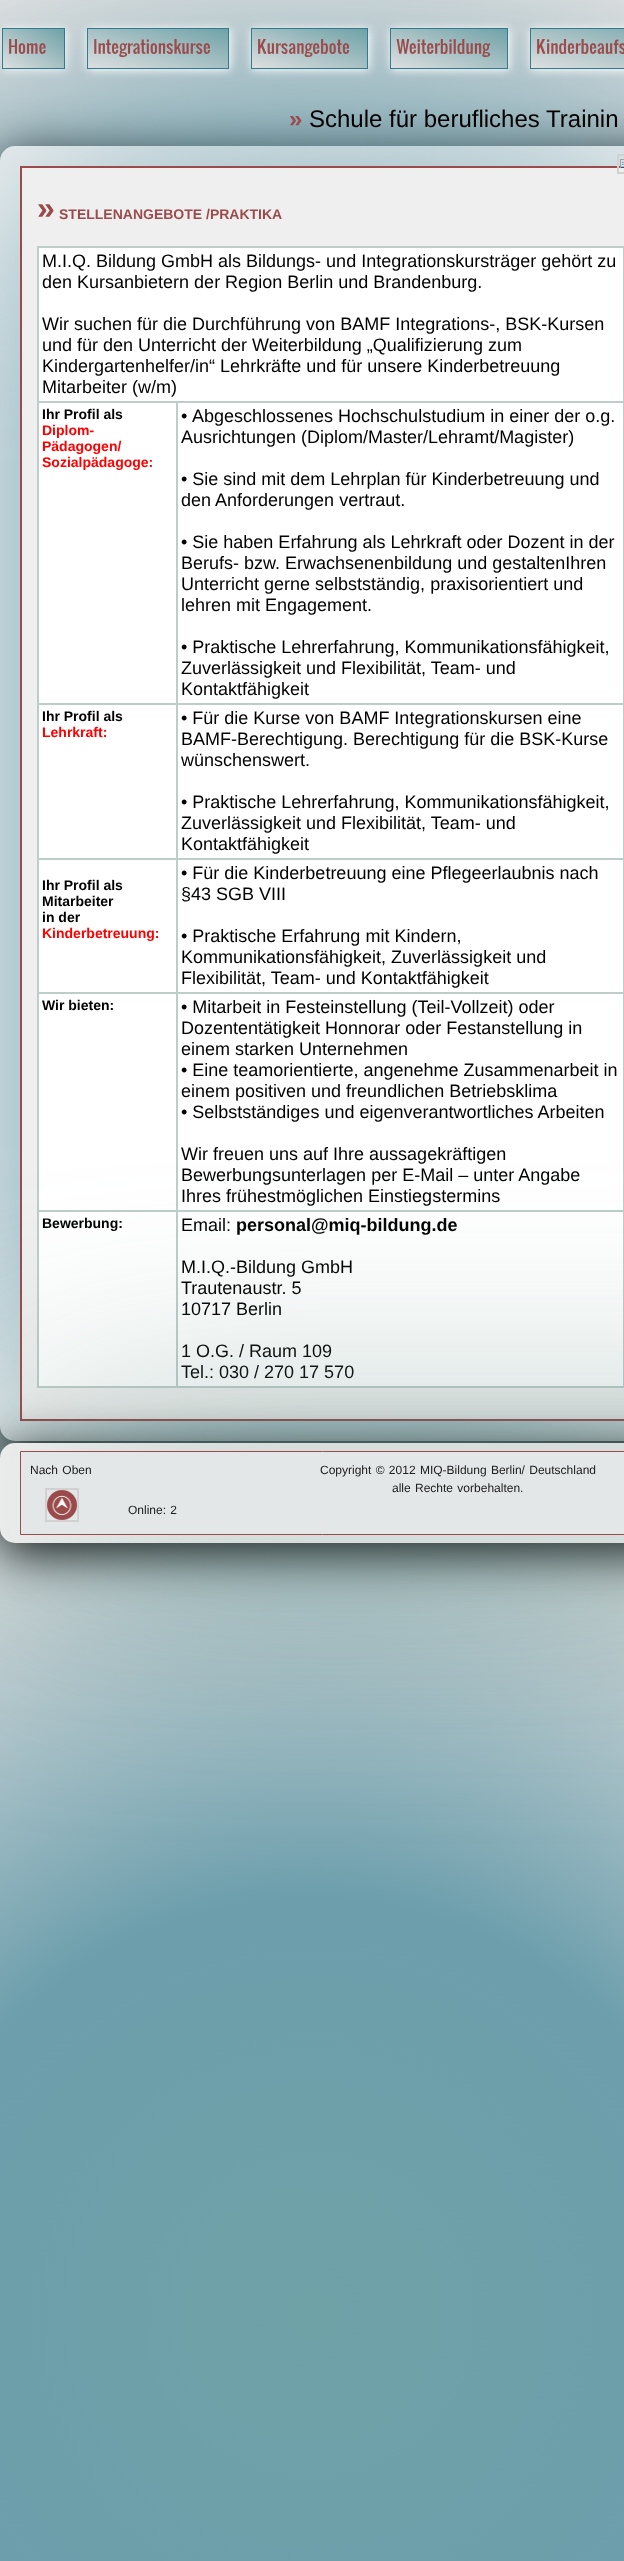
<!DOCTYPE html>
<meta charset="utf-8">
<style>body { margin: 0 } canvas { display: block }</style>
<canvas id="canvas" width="624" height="2561"></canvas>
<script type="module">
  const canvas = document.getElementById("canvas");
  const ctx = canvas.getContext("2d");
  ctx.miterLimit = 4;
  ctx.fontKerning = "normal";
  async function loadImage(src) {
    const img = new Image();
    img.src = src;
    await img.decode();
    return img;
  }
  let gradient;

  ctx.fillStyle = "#ffffff";
  ctx.fillRect(0, 0, 624, 2561);
  gradient = ctx.createRadialGradient(312, 772, 0, 312, 772, 832);
  gradient.addColorStop(0, "#6fa2a7");
  gradient.addColorStop(0.5, "#6c9eac");
  gradient.addColorStop(1, "#dddfe0");
  ctx.fillStyle = gradient;
  ctx.fillRect(0, 0, 624, 1543);
  gradient = ctx.createRadialGradient(312, 2315, 0, 312, 2315, 832);
  gradient.addColorStop(0, "#6fa2a7");
  gradient.addColorStop(0.5, "#6c9eac");
  gradient.addColorStop(1, "#dddfe0");
  ctx.fillStyle = gradient;
  ctx.fillRect(0, 1543, 624, 1018);
  ctx.fillStyle = "#ffffff";
  ctx.filter = "blur(5px)";
  ctx.beginPath();
  ctx.rect(3, 29, 63, 41);
  ctx.fill();
  ctx.filter = "none";
  ctx.fillStyle = "#000000";
  ctx.filter = "blur(25px)";
  ctx.beginPath();
  ctx.roundRect(0, 156, 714, 1295, 15);
  ctx.fill();
  ctx.filter = "none";
  ctx.fillStyle = "#fbf8f8";
  ctx.beginPath();
  ctx.roundRect(0, 146, 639, 1295, 15);
  ctx.fill();
  ctx.fillStyle = "#6c9eac";
  ctx.filter = "blur(125px)";
  ctx.beginPath();
  ctx.rect(20, 176, 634, 1255);
  ctx.fill();
  ctx.filter = "none";
  gradient = ctx.createLinearGradient(51, 21, 16, 76);
  gradient.addColorStop(0, "#6fa2a7");
  gradient.addColorStop(1, "#dddfe0");
  ctx.fillStyle = gradient;
  ctx.fillRect(3, 29, 61, 39);
  ctx.strokeStyle = "#327b8f";
  ctx.strokeRect(2.5, 28.5, 62, 40);
  ctx.drawImage(await loadImage("img1.png"), 9, 39, 37, 15);
  ctx.fillStyle = "#ffffff";
  ctx.filter = "blur(5px)";
  ctx.beginPath();
  ctx.rect(88, 29, 142, 41);
  ctx.fill();
  ctx.filter = "none";
  gradient = ctx.createLinearGradient(168, 12, 148, 85);
  gradient.addColorStop(0, "#6fa2a7");
  gradient.addColorStop(1, "#dddfe0");
  ctx.fillStyle = gradient;
  ctx.fillRect(88, 29, 140, 39);
  ctx.strokeRect(87.5, 28.5, 141, 40);
  ctx.drawImage(await loadImage("img2.png"), 94, 39, 116, 18);
  ctx.fillStyle = "#ffffff";
  ctx.filter = "blur(5px)";
  ctx.beginPath();
  ctx.rect(252, 29, 117, 41);
  ctx.fill();
  ctx.filter = "none";
  gradient = ctx.createLinearGradient(321, 14, 298, 83);
  gradient.addColorStop(0, "#6fa2a7");
  gradient.addColorStop(1, "#dddfe0");
  ctx.fillStyle = gradient;
  ctx.fillRect(252, 29, 115, 39);
  ctx.strokeRect(251.5, 28.5, 116, 40);
  ctx.drawImage(await loadImage("img3.png"), 258, 39, 92, 18);
  ctx.fillStyle = "#ffffff";
  ctx.filter = "blur(5px)";
  ctx.beginPath();
  ctx.rect(391, 29, 118, 41);
  ctx.fill();
  ctx.filter = "none";
  gradient = ctx.createLinearGradient(461, 13, 437, 84);
  gradient.addColorStop(0, "#6fa2a7");
  gradient.addColorStop(1, "#dddfe0");
  ctx.fillStyle = gradient;
  ctx.fillRect(391, 29, 116, 39);
  ctx.strokeRect(390.5, 28.5, 117, 40);
  ctx.drawImage(await loadImage("img4.png"), 396, 39, 95, 18);
  ctx.fillStyle = "#ffffff";
  ctx.filter = "blur(5px)";
  ctx.beginPath();
  ctx.rect(531, 29, 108, 41);
  ctx.fill();
  ctx.filter = "none";
  gradient = ctx.createLinearGradient(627, 11, 610, 86);
  gradient.addColorStop(0, "#6fa2a7");
  gradient.addColorStop(1, "#dddfe0");
  ctx.fillStyle = gradient;
  ctx.fillRect(531, 29, 93, 39);
  ctx.strokeRect(530.5, 28.5, 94, 40);
  ctx.drawImage(await loadImage("img5.png"), 537, 39, 87, 15);
  ctx.font = "bold 24px Liberation Sans";
  ctx.fillStyle = "#9b4b4b";
  ctx.fillText("»", 289, 127);
  ctx.font = "24px Liberation Sans";
  ctx.fillStyle = "#000000";
  ctx.fillText("Schule für berufliches Trainin", 309, 127);
  ctx.fillStyle = "#efefef";
  ctx.beginPath();
  ctx.rect(21, 167, 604, 1253);
  ctx.fill();
  ctx.strokeStyle = "#9b4b4b";
  ctx.lineWidth = 2;
  ctx.stroke();
  ctx.strokeStyle = "#d1d1d1";
  ctx.strokeRect(618, 155, 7, 18);
  ctx.drawImage(await loadImage("img6.png"), 620, 159, 4, 9);
  ctx.font = "bold 32px Liberation Sans";
  ctx.fillStyle = "#9b4b4b";
  ctx.fillText("»", 37, 219);
  ctx.font = "bold 14px Liberation Sans";
  ctx.fillText("STELLENANGEBOTE /PRAKTIKA", 59, 219);
  ctx.fillStyle = "#ffffff";
  ctx.fillRect(39, 248, 584, 153);
  ctx.fillStyle = "#becdc9";
  ctx.fillRect(37, 246, 587, 2);
  ctx.fillRect(176, 401, 448, 2);
  ctx.fillRect(176, 703, 448, 2);
  ctx.fillRect(176, 858, 448, 2);
  ctx.fillRect(176, 992, 448, 2);
  ctx.fillRect(176, 1210, 448, 2);
  ctx.fillRect(623, 1210, 1, 178);
  ctx.fillRect(623, 992, 1, 220);
  ctx.fillRect(623, 858, 1, 136);
  ctx.fillRect(623, 703, 1, 157);
  ctx.fillRect(623, 401, 1, 304);
  ctx.fillRect(623, 246, 1, 157);
  ctx.fillRect(176, 1386, 448, 2);
  ctx.fillRect(176, 1210, 2, 178);
  ctx.fillRect(37, 1210, 141, 2);
  ctx.fillRect(176, 992, 2, 220);
  ctx.fillRect(37, 992, 141, 2);
  ctx.fillRect(176, 858, 2, 136);
  ctx.fillRect(37, 858, 141, 2);
  ctx.fillRect(176, 703, 2, 157);
  ctx.fillRect(37, 703, 141, 2);
  ctx.fillRect(176, 401, 2, 304);
  ctx.fillRect(37, 401, 141, 2);
  ctx.fillRect(37, 1386, 141, 2);
  ctx.fillRect(37, 1210, 2, 178);
  ctx.fillRect(37, 992, 2, 220);
  ctx.fillRect(37, 858, 2, 136);
  ctx.fillRect(37, 703, 2, 157);
  ctx.fillRect(37, 401, 2, 304);
  ctx.fillRect(37, 246, 2, 157);
  ctx.font = "18px Liberation Sans";
  ctx.fillStyle = "#000000";
  ctx.fillText("M.I.Q. Bildung GmbH als Bildungs- und Integrationskursträger gehört zu", 42, 267);
  ctx.fillText("den Kursanbietern der Region Berlin und Brandenburg.", 42, 288);
  ctx.fillText("Wir suchen für die Durchführung von BAMF Integrations-, BSK-Kursen", 42, 330);
  ctx.fillText("und für den Unterricht der Weiterbildung „Qualifizierung zum", 42, 351);
  ctx.fillText("Kindergartenhelfer/in“ Lehrkräfte und für unsere Kinderbetreuung", 42, 372);
  ctx.fillText("Mitarbeiter (w/m)", 42, 393);
  ctx.fillStyle = "#ffffff";
  ctx.fillRect(39, 403, 137, 300);
  ctx.font = "bold 14px Liberation Sans";
  ctx.fillStyle = "#000000";
  ctx.fillText("Ihr Profil als", 42, 419);
  ctx.fillStyle = "#ff0000";
  ctx.fillText("Diplom-", 42, 435);
  ctx.fillText("Pädagogen/", 42, 451);
  ctx.fillText("Sozialpädagoge:", 42, 467);
  ctx.fillStyle = "#ffffff";
  ctx.fillRect(178, 403, 445, 300);
  ctx.font = "18px Liberation Sans";
  ctx.fillStyle = "#000000";
  ctx.fillText("•", 181, 422);
  ctx.fillText("Abgeschlossenes Hochschulstudium in einer der o.g.", 192, 422);
  ctx.fillText("Ausrichtungen (Diplom/Master/Lehramt/Magister)", 181, 443);
  ctx.fillText("• Sie sind mit dem Lehrplan für Kinderbetreuung und", 181, 485);
  ctx.fillText("den Anforderungen vertraut.", 181, 506);
  ctx.fillText("• Sie haben Erfahrung als Lehrkraft oder Dozent in der", 181, 548);
  ctx.fillText("Berufs- bzw. Erwachsenenbildung und gestaltenIhren", 181, 569);
  ctx.fillText("Unterricht gerne selbstständig, praxisorientiert und", 181, 590);
  ctx.fillText("lehren mit Engagement.", 181, 611);
  ctx.fillText("• Praktische Lehrerfahrung, Kommunikationsfähigkeit,", 181, 653);
  ctx.fillText("Zuverlässigkeit und Flexibilität, Team- und", 181, 674);
  ctx.fillText("Kontaktfähigkeit", 181, 695);
  ctx.fillStyle = "#ffffff";
  ctx.fillRect(39, 705, 137, 153);
  ctx.font = "bold 14px Liberation Sans";
  ctx.fillStyle = "#000000";
  ctx.fillText("Ihr Profil als", 42, 721);
  ctx.fillStyle = "#ff0000";
  ctx.fillText("Lehrkraft:", 42, 737);
  ctx.fillStyle = "#ffffff";
  ctx.fillRect(178, 705, 445, 153);
  ctx.font = "18px Liberation Sans";
  ctx.fillStyle = "#000000";
  ctx.fillText("• Für die Kurse von BAMF Integrationskursen eine", 181, 724);
  ctx.fillText("BAMF-Berechtigung. Berechtigung für die BSK-Kurse", 181, 745);
  ctx.fillText("wünschenswert.", 181, 766);
  ctx.fillText("• Praktische Lehrerfahrung, Kommunikationsfähigkeit,", 181, 808);
  ctx.fillText("Zuverlässigkeit und Flexibilität, Team- und", 181, 829);
  ctx.fillText("Kontaktfähigkeit", 181, 850);
  ctx.fillStyle = "#ffffff";
  ctx.fillRect(39, 860, 137, 132);
  ctx.font = "bold 14px Liberation Sans";
  ctx.fillStyle = "#000000";
  ctx.fillText("Ihr Profil als", 42, 890);
  ctx.fillText("Mitarbeiter", 42, 906);
  ctx.fillText("in der", 42, 922);
  ctx.fillStyle = "#ff0000";
  ctx.fillText("Kinderbetreuung:", 42, 938);
  ctx.fillStyle = "#ffffff";
  ctx.fillRect(178, 860, 445, 132);
  ctx.font = "18px Liberation Sans";
  ctx.fillStyle = "#000000";
  ctx.fillText("• Für die Kinderbetreuung eine Pflegeerlaubnis nach", 181, 879);
  ctx.fillText("§43 SGB VIII", 181, 900);
  ctx.fillText("• Praktische Erfahrung mit Kindern,", 181, 942);
  ctx.fillText("Kommunikationsfähigkeit, Zuverlässigkeit und", 181, 963);
  ctx.fillText("Flexibilität, Team- und Kontaktfähigkeit", 181, 984);
  ctx.fillStyle = "#ffffff";
  ctx.fillRect(39, 994, 137, 216);
  ctx.font = "bold 14px Liberation Sans";
  ctx.fillStyle = "#000000";
  ctx.fillText("Wir bieten:", 42, 1010);
  ctx.fillStyle = "#ffffff";
  ctx.fillRect(178, 994, 445, 216);
  ctx.font = "18px Liberation Sans";
  ctx.fillStyle = "#000000";
  ctx.fillText("• Mitarbeit in Festeinstellung (Teil-Vollzeit) oder", 181, 1013);
  ctx.fillText("Dozententätigkeit Honnorar oder Festanstellung in", 181, 1034);
  ctx.fillText("einem starken Unternehmen", 181, 1055);
  ctx.fillText("• Eine teamorientierte, angenehme Zusammenarbeit in", 181, 1076);
  ctx.fillText("einem positiven und freundlichen Betriebsklima", 181, 1097);
  ctx.fillText("• Selbstständiges und eigenverantwortliches Arbeiten", 181, 1118);
  ctx.fillText("Wir freuen uns auf Ihre aussagekräftigen", 181, 1160);
  ctx.fillText("Bewerbungsunterlagen per E-Mail – unter Angabe", 181, 1181);
  ctx.fillText("Ihres frühestmöglichen Einstiegstermins", 181, 1202);
  ctx.fillStyle = "#ffffff";
  ctx.fillRect(39, 1212, 137, 174);
  ctx.font = "bold 14px Liberation Sans";
  ctx.fillStyle = "#000000";
  ctx.fillText("Bewerbung:", 42, 1228);
  ctx.fillStyle = "#ffffff";
  ctx.fillRect(178, 1212, 445, 174);
  ctx.font = "18px Liberation Sans";
  ctx.fillStyle = "#000000";
  ctx.fillText("Email:", 181, 1231);
  ctx.font = "bold 18px Liberation Sans";
  ctx.fillText("personal@miq-bildung.de", 236, 1231);
  ctx.font = "18px Liberation Sans";
  ctx.fillText("M.I.Q.-Bildung GmbH", 181, 1273);
  ctx.fillText("Trautenaustr. 5", 181, 1294);
  ctx.fillText("10717 Berlin", 181, 1315);
  ctx.fillText("1 O.G. / Raum 109", 181, 1357);
  ctx.fillText("Tel.: 030 / 270 17 570", 181, 1378);
  ctx.filter = "blur(25px)";
  ctx.beginPath();
  ctx.roundRect(0, 1453, 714, 100, 15);
  ctx.fill();
  ctx.filter = "none";
  ctx.fillStyle = "#fbf8f8";
  ctx.beginPath();
  ctx.roundRect(0, 1443, 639, 100, 15);
  ctx.fill();
  ctx.fillStyle = "#679087";
  ctx.filter = "blur(125px)";
  ctx.beginPath();
  ctx.rect(20, 1461, 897, 84);
  ctx.fill();
  ctx.filter = "none";
  ctx.fillStyle = "#e4e7e7";
  ctx.beginPath();
  ctx.rect(20.5, 1451.5, 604, 83);
  ctx.fill();
  ctx.strokeStyle = "#9b4b4b";
  ctx.lineWidth = 1;
  ctx.stroke();
  ctx.wordSpacing = "1px";
  ctx.font = "12px Liberation Sans";
  ctx.fillStyle = "#202020";
  ctx.fillText("Nach Oben", 30, 1474);
  ctx.strokeStyle = "#d1d1d1";
  ctx.lineWidth = 2;
  ctx.strokeRect(46, 1489, 32, 32);
  ctx.drawImage(await loadImage("img7.png"), 47, 1490, 30, 30);
  ctx.fillText("Copyright © 2012 MIQ-Bildung Berlin/ Deutschland", 320, 1474);
  ctx.fillText("alle Rechte vorbehalten.", 392, 1492);
  ctx.fillText("Online: 2", 128, 1514);
</script>
